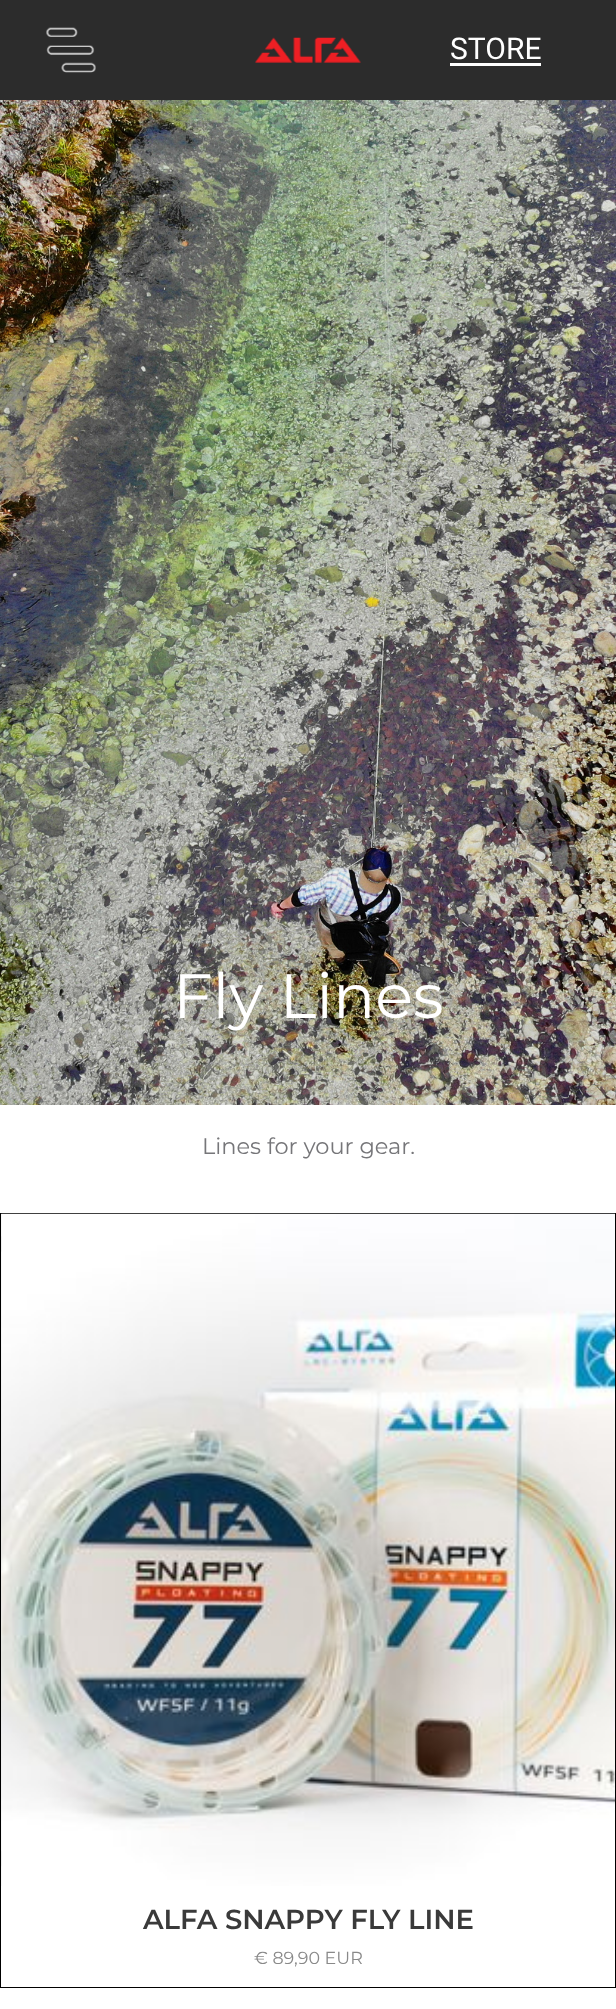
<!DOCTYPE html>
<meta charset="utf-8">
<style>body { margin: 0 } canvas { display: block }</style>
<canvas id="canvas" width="616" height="2009"></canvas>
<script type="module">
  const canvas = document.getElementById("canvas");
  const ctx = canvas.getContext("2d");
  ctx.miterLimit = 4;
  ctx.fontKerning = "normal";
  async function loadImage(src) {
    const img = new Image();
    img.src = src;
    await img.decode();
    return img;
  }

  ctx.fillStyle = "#ffffff";
  ctx.fillRect(0, 0, 616, 2009);
  ctx.fillStyle = "#2c2c2c";
  ctx.fillRect(0, 0, 616, 100);
  ctx.drawImage(await loadImage("img1.png"), 46, 27, 50, 46);
  ctx.drawImage(await loadImage("img2.png"), 255, 37, 106, 26);
  ctx.font = "30px Roboto";
  ctx.fillStyle = "#ffffff";
  ctx.fillText("STORE", 450, 59);
  ctx.fillRect(450, 63, 91, 3);
  ctx.drawImage(await loadImage("img3.png"), 0, 100, 616, 1005);
  ctx.font = "62.5px Montserrat";
  ctx.fillText("Fly Lines", 173, 1018);
  ctx.font = "22.5px Montserrat";
  ctx.fillStyle = "#767679";
  ctx.fillText("Lines for your gear.", 202, 1154);
  ctx.strokeStyle = "#000000";
  ctx.strokeRect(0.5, 1213.5, 615, 774);
  ctx.drawImage(await loadImage("img4.png"), 1, 1214, 1, 672);
  ctx.drawImage(await loadImage("img5.png"), 1, 1213, 614, 673);
  ctx.font = "600 27.5px Montserrat";
  ctx.fillStyle = "#3a3a3a";
  ctx.fillText("ALFA SNAPPY FLY LINE", 143, 1929);
  ctx.font = "17.5px Montserrat";
  ctx.fillStyle = "#898989";
  ctx.fillText("€ 89,90 EUR", 254, 1964);
</script>
